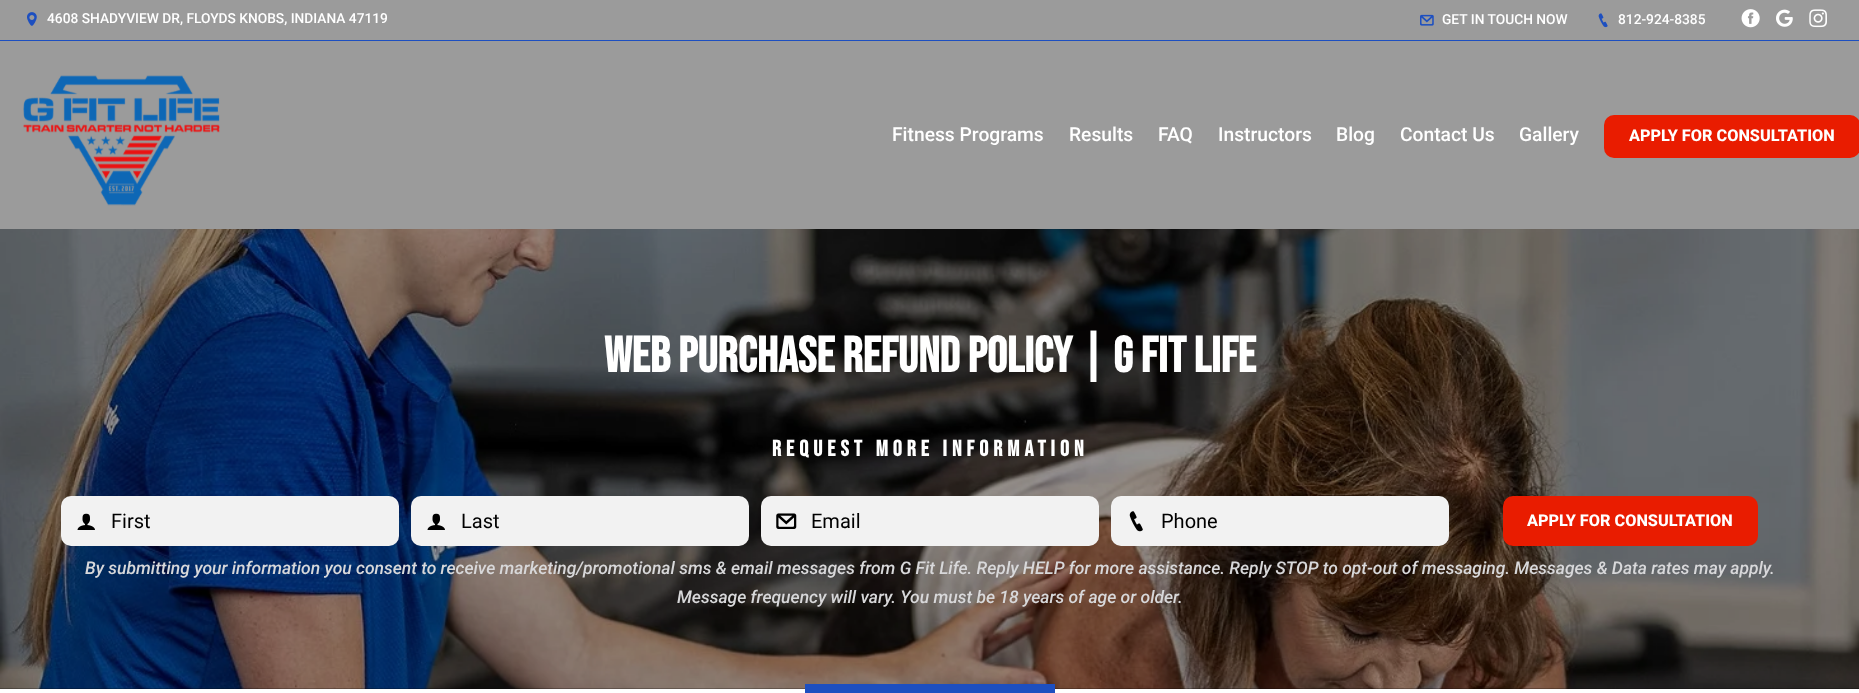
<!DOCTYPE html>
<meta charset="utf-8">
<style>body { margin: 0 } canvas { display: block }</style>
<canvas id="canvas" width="1859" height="693"></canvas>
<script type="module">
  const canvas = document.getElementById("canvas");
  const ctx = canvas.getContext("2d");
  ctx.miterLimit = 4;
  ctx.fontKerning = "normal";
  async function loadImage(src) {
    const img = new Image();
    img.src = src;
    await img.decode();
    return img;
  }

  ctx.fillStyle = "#ffffff";
  ctx.fillRect(0, 0, 1859, 693);
  ctx.fillStyle = "#9b9b9b";
  ctx.fillRect(0, 0, 1859, 229);
  ctx.fillStyle = "#1d4fc0";
  ctx.fillRect(0, 40, 1859, 1);
  ctx.drawImage(await loadImage("img1.png"), 27, 12, 10, 14);
  ctx.font = "500 13.75px Roboto";
  ctx.fillStyle = "#ffffff";
  ctx.fillText("4608 SHADYVIEW DR, FLOYDS KNOBS, INDIANA 47119", 47, 23);
  ctx.drawImage(await loadImage("img2.png"), 1420, 14, 14, 12);
  ctx.fillText("GET IN TOUCH NOW", 1442, 24);
  ctx.drawImage(await loadImage("img3.png"), 1598, 13, 10, 15);
  ctx.fillText("812-924-8385", 1618, 24);
  ctx.drawImage(await loadImage("img4.png"), 1741, 9, 19, 19);
  ctx.drawImage(await loadImage("img5.png"), 1776, 9, 17, 18);
  ctx.drawImage(await loadImage("img6.png"), 1809, 9, 18, 19);
  ctx.drawImage(await loadImage("img7.png"), 23, 75, 197, 131);
  ctx.font = "500 19.25px Roboto";
  ctx.fillText("Fitness Programs", 892, 141);
  ctx.fillText("Results", 1069, 141);
  ctx.fillText("FAQ", 1158, 141);
  ctx.fillText("Instructors", 1218, 141);
  ctx.fillText("Blog", 1336, 141);
  ctx.fillText("Contact Us", 1400, 141);
  ctx.fillText("Gallery", 1519, 141);
  ctx.fillStyle = "#e91c00";
  ctx.beginPath();
  ctx.roundRect(1604, 115, 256, 43, 10);
  ctx.fill();
  ctx.font = "800 16.25px Roboto";
  ctx.fillStyle = "#ffffff";
  ctx.fillText("APPLY FOR CONSULTATION", 1629, 141);
  ctx.fillStyle = "#000000";
  ctx.fillRect(0, 229, 1859, 460);
  ctx.drawImage(await loadImage("img8.png"), 0, 229, 1859, 460);
  ctx.font = "bold 50px Bebas Neue";
  ctx.fillStyle = "#ffffff";
  ctx.fillText("Web Purchase Refund Policy | G Fit Life", 604, 372);
  ctx.letterSpacing = "5px";
  ctx.font = "bold 22.5px Bebas Neue";
  ctx.fillText("REQUEST MORE INFORMATION", 772, 456);
  ctx.fillStyle = "#f2f2f2";
  ctx.beginPath();
  ctx.roundRect(61, 496, 338, 50, 10);
  ctx.fill();
  ctx.drawImage(await loadImage("img9.png"), 77, 513, 18, 17);
  ctx.letterSpacing = "0px";
  ctx.font = "20px Roboto";
  ctx.fillStyle = "#000000";
  ctx.fillText("First", 111, 528);
  ctx.fillStyle = "#f2f2f2";
  ctx.beginPath();
  ctx.roundRect(411, 496, 338, 50, 10);
  ctx.fill();
  ctx.drawImage(await loadImage("img9.png"), 427, 513, 18, 17);
  ctx.fillStyle = "#000000";
  ctx.fillText("Last", 461, 528);
  ctx.fillStyle = "#f2f2f2";
  ctx.beginPath();
  ctx.roundRect(761, 496, 338, 50, 10);
  ctx.fill();
  ctx.drawImage(await loadImage("img10.png"), 776, 513, 21, 16);
  ctx.fillStyle = "#000000";
  ctx.fillText("Email", 811, 528);
  ctx.fillStyle = "#f2f2f2";
  ctx.beginPath();
  ctx.roundRect(1111, 496, 338, 50, 10);
  ctx.fill();
  ctx.drawImage(await loadImage("img11.png"), 1129, 511, 14, 21);
  ctx.fillStyle = "#000000";
  ctx.fillText("Phone", 1161, 528);
  ctx.fillStyle = "#e91c00";
  ctx.beginPath();
  ctx.roundRect(1503, 496, 255, 50, 10);
  ctx.fill();
  ctx.font = "800 16.25px Roboto";
  ctx.fillStyle = "#ffffff";
  ctx.fillText("APPLY FOR CONSULTATION", 1527, 526);
  ctx.font = "italic 500 17.5px Roboto";
  ctx.fillStyle = "#d8d8da";
  ctx.fillText("By submitting your information you consent to receive marketing/promotional sms & email messages from G Fit Life. Reply HELP for more assistance. Reply STOP to opt-out of messaging. Messages & Data rates may apply.", 85, 574);
  ctx.fillText("Message frequency will vary. You must be 18 years of age or older.", 677, 603);
  ctx.fillStyle = "#1d4fc0";
  ctx.fillRect(805, 684, 250, 9);
</script>
